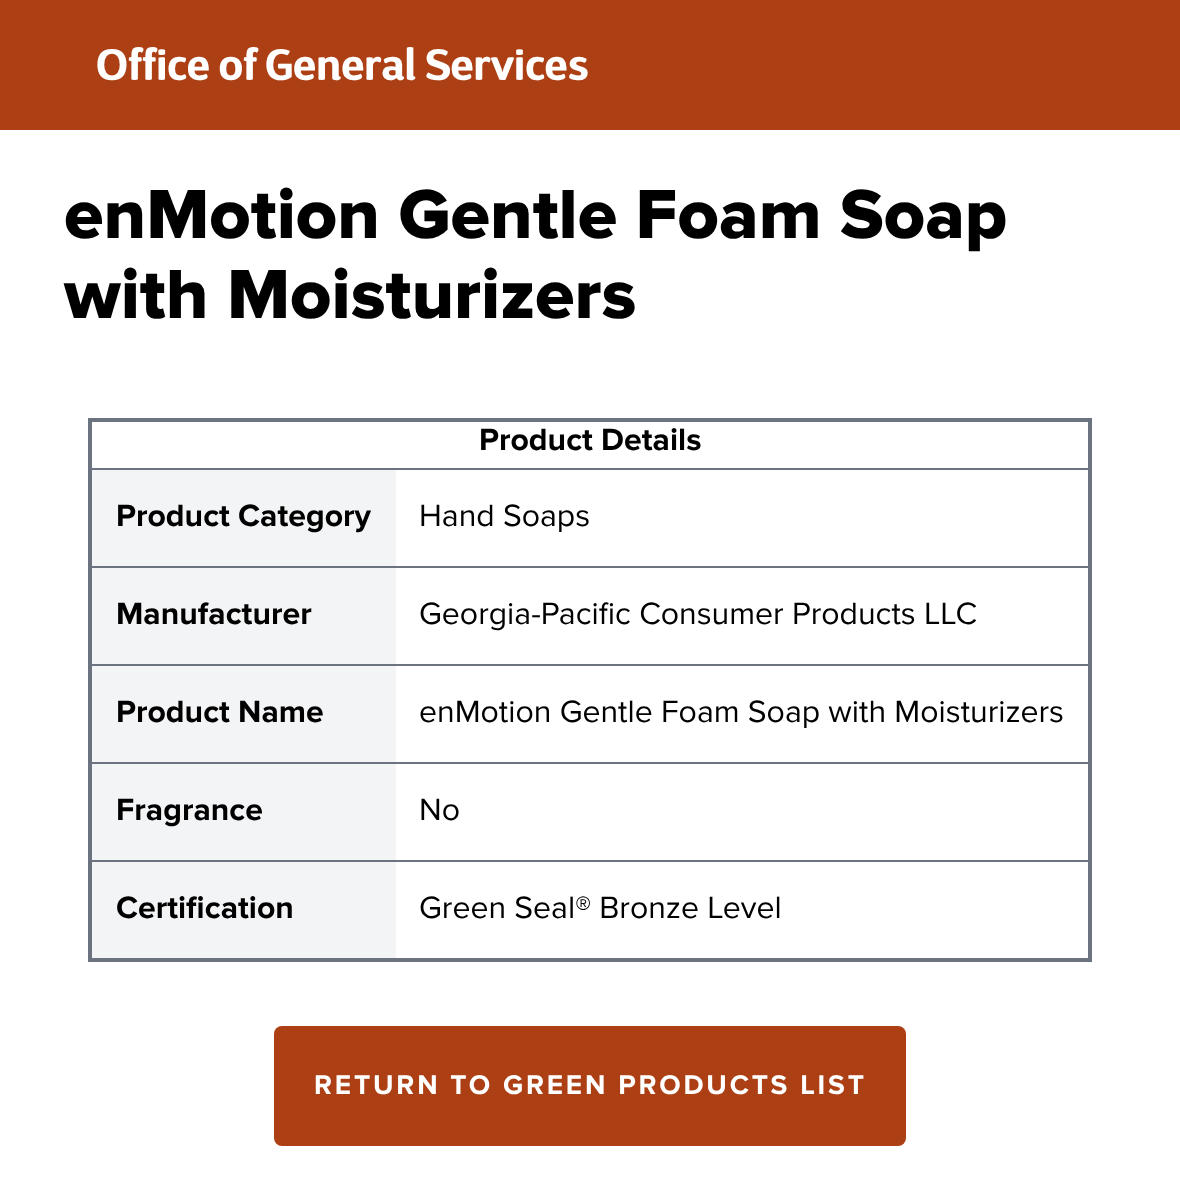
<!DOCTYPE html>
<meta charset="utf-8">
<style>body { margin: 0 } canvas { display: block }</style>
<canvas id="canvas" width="1180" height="1197"></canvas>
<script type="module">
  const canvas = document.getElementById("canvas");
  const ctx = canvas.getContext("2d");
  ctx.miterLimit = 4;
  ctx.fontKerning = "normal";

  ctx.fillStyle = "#ffffff";
  ctx.fillRect(0, 0, 1180, 1197);
  ctx.fillStyle = "#ac3f14";
  ctx.fillRect(0, 0, 1180, 130);
  ctx.font = "600 44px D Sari";
  ctx.fillStyle = "#ffffff";
  ctx.fillText("Office of General Services", 96, 80);
  ctx.font = "800 72px Proxima Nova";
  ctx.fillStyle = "#000000";
  ctx.fillText("enMotion Gentle Foam Soap", 64, 238);
  ctx.fillText("with Moisturizers", 64, 318);
  ctx.fillStyle = "#6b7280";
  ctx.fillRect(88, 418, 1004, 4);
  ctx.fillRect(88, 468, 1004, 2);
  ctx.fillRect(88, 566, 1004, 2);
  ctx.fillRect(88, 664, 1004, 2);
  ctx.fillRect(88, 762, 1004, 2);
  ctx.fillRect(88, 860, 1004, 2);
  ctx.fillRect(1088, 418, 4, 544);
  ctx.fillRect(88, 958, 1004, 4);
  ctx.fillRect(88, 418, 4, 544);
  ctx.font = "bold 32px Proxima Nova";
  ctx.fillStyle = "#000000";
  ctx.fillText("Product Details", 479, 450);
  ctx.fillStyle = "#f3f4f6";
  ctx.fillRect(92, 470, 304, 96);
  ctx.fillStyle = "#000000";
  ctx.fillText("Product Category", 116, 526);
  ctx.font = "32px Proxima Nova";
  ctx.fillText("Hand Soaps", 419, 526);
  ctx.fillStyle = "#f3f4f6";
  ctx.fillRect(92, 568, 304, 96);
  ctx.font = "bold 32px Proxima Nova";
  ctx.fillStyle = "#000000";
  ctx.fillText("Manufacturer", 116, 624);
  ctx.font = "32px Proxima Nova";
  ctx.fillText("Georgia-Pacific Consumer Products LLC", 419, 624);
  ctx.fillStyle = "#f3f4f6";
  ctx.fillRect(92, 666, 304, 96);
  ctx.font = "bold 32px Proxima Nova";
  ctx.fillStyle = "#000000";
  ctx.fillText("Product Name", 116, 722);
  ctx.font = "32px Proxima Nova";
  ctx.fillText("enMotion Gentle Foam Soap with Moisturizers", 419, 722);
  ctx.fillStyle = "#f3f4f6";
  ctx.fillRect(92, 764, 304, 96);
  ctx.font = "bold 32px Proxima Nova";
  ctx.fillStyle = "#000000";
  ctx.fillText("Fragrance", 116, 820);
  ctx.font = "32px Proxima Nova";
  ctx.fillText("No", 419, 820);
  ctx.fillStyle = "#f3f4f6";
  ctx.fillRect(92, 862, 304, 96);
  ctx.font = "bold 32px Proxima Nova";
  ctx.fillStyle = "#000000";
  ctx.fillText("Certification", 116, 918);
  ctx.font = "32px Proxima Nova";
  ctx.fillText("Green Seal® Bronze Level", 419, 918);
  ctx.fillStyle = "#ac3f14";
  ctx.beginPath();
  ctx.roundRect(274, 1026, 632, 120, 8);
  ctx.fill();
  ctx.letterSpacing = "2.8px";
  ctx.font = "bold 28px Proxima Nova";
  ctx.fillStyle = "#ffffff";
  ctx.fillText("RETURN TO GREEN PRODUCTS LIST", 314, 1094);
</script>
